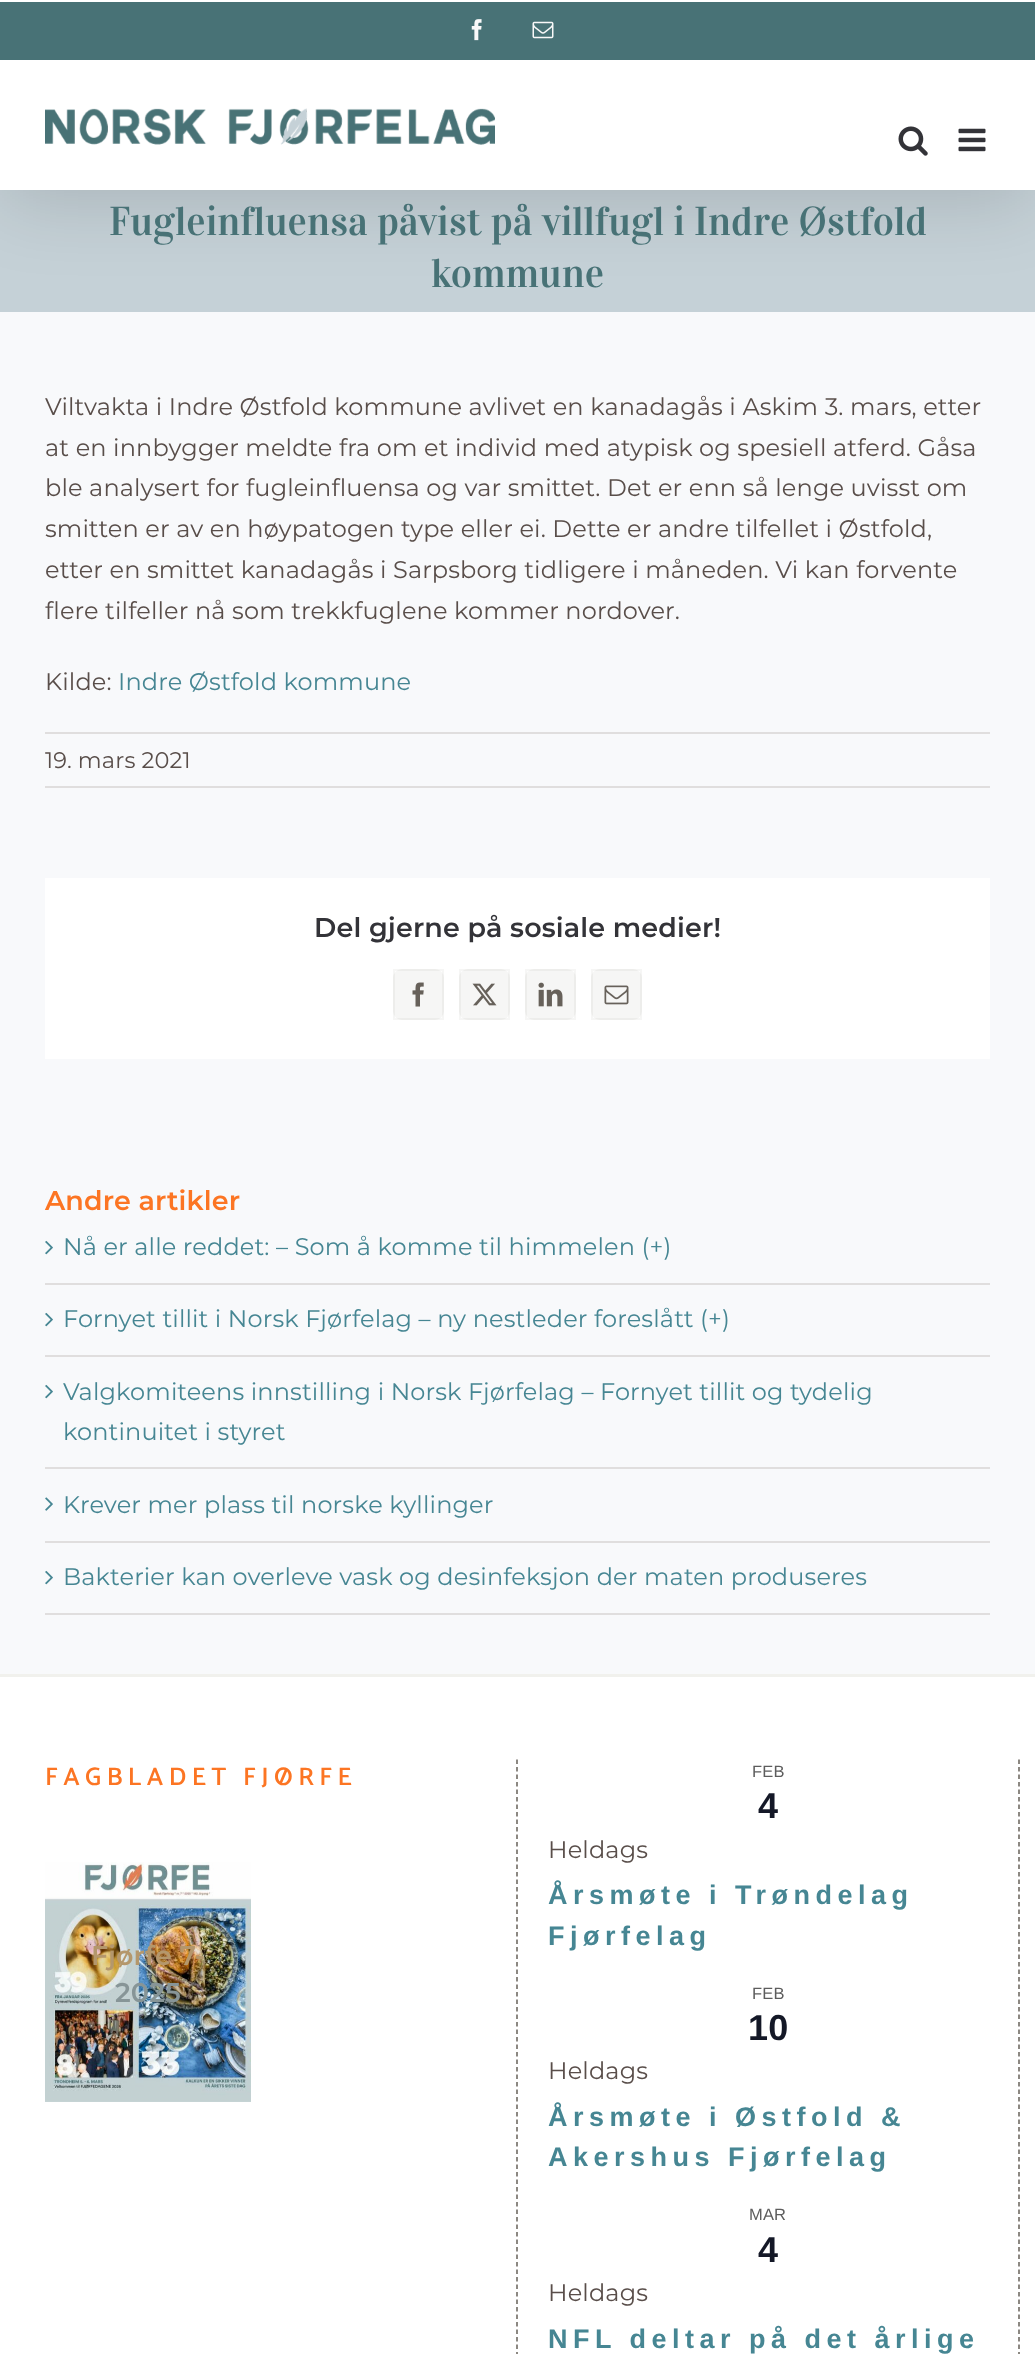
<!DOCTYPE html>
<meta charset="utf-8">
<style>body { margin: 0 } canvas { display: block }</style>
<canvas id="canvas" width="1035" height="2354"></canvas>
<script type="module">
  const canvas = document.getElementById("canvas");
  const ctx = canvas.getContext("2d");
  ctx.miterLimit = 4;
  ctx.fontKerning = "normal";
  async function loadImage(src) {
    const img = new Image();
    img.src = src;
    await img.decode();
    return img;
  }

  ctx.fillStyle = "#c5d1d7";
  ctx.fillRect(0, 0, 1035, 2354);
  ctx.fillStyle = "#f8f9fb";
  ctx.fillRect(0, 312, 1035, 1362);
  ctx.fillStyle = "rgba(0, 0, 0, 0.14)";
  ctx.filter = "blur(37.5px)";
  ctx.beginPath();
  ctx.rect(3, 18, 1029, 183);
  ctx.fill();
  ctx.filter = "none";
  ctx.fillStyle = "#487276";
  ctx.fillRect(0, 2, 1035, 58);
  ctx.fillStyle = "#ffffff";
  ctx.fillRect(0, 60, 1035, 130);
  ctx.fillRect(0, 0, 1035, 2);
  ctx.drawImage(await loadImage("img1.png"), 471, 19, 11, 22);
  ctx.drawImage(await loadImage("img2.png"), 532, 21, 22, 18);
  ctx.drawImage(await loadImage("img3.png"), 45, 108, 450, 37);
  ctx.drawImage(await loadImage("img4.png"), 898, 126, 30, 30);
  ctx.drawImage(await loadImage("img5.png"), 958, 128, 28, 24);
  ctx.font = "40.45px Vidaloka";
  ctx.fillStyle = "#487276";
  ctx.fillText("Fugleinfluensa påvist på villfugl i Indre Østfold", 109, 235);
  ctx.fillText("kommune", 431, 287);
  ctx.letterSpacing = "0.15px";
  ctx.font = "24px Montserrat";
  ctx.fillStyle = "#594e4a";
  ctx.fillText("Viltvakta i Indre Østfold kommune avlivet en kanadagås i Askim 3. mars, etter", 45, 415);
  ctx.fillText("at en innbygger meldte fra om et individ med atypisk og spesiell atferd. Gåsa", 45, 456);
  ctx.fillText("ble analysert for fugleinfluensa og var smittet. Det er enn så lenge uvisst om", 45, 496);
  ctx.fillText("smitten er av en høypatogen type eller ei. Dette er andre tilfellet i Østfold,", 45, 537);
  ctx.fillText("etter en smittet kanadagås i Sarpsborg tidligere i måneden. Vi kan forvente", 45, 578);
  ctx.fillText("flere tilfeller nå som trekkfuglene kommer nordover.", 45, 619);
  ctx.fillText("Kilde:", 45, 690);
  ctx.fillStyle = "#468693";
  ctx.fillText("Indre Østfold kommune", 118, 690);
  ctx.fillStyle = "#e0dede";
  ctx.fillRect(45, 732, 945, 2);
  ctx.fillRect(45, 786, 945, 2);
  ctx.font = "22.5px Montserrat";
  ctx.fillStyle = "#594e4a";
  ctx.fillText("19. mars 2021", 45, 768);
  ctx.fillStyle = "#ffffff";
  ctx.fillRect(45, 878, 945, 181);
  ctx.font = "600 27px Montserrat";
  ctx.fillStyle = "#333338";
  ctx.fillText("Del gjerne på sosiale medier!", 314, 937);
  ctx.fillStyle = "#f6f6f5";
  ctx.beginPath();
  ctx.roundRect(393, 969, 51, 51, 9);
  ctx.fill();
  ctx.strokeStyle = "rgba(103, 97, 90, 0.06)";
  ctx.lineWidth = 2;
  ctx.strokeRect(394, 970, 49, 49);
  ctx.drawImage(await loadImage("img6.png"), 412, 982, 12, 25);
  ctx.beginPath();
  ctx.roundRect(459, 969, 51, 51, 9);
  ctx.fill();
  ctx.strokeRect(460, 970, 49, 49);
  ctx.drawImage(await loadImage("img7.png"), 472, 983, 25, 23);
  ctx.beginPath();
  ctx.roundRect(525, 969, 51, 51, 9);
  ctx.fill();
  ctx.strokeRect(526, 970, 49, 49);
  ctx.drawImage(await loadImage("img8.png"), 538, 982, 25, 25);
  ctx.beginPath();
  ctx.roundRect(591, 969, 51, 51, 9);
  ctx.fill();
  ctx.strokeRect(592, 970, 49, 49);
  ctx.drawImage(await loadImage("img9.png"), 604, 985, 25, 20);
  ctx.fillStyle = "#fc7523";
  ctx.fillText("Andre artikler", 45, 1210);
  ctx.fillStyle = "#e0dede";
  ctx.fillRect(45, 1283, 945, 2);
  ctx.drawImage(await loadImage("img10.png"), 45, 1240, 8, 15);
  ctx.font = "24px Montserrat";
  ctx.fillStyle = "#468693";
  ctx.fillText("Nå er alle reddet: – Som å komme til himmelen (+)", 63, 1255);
  ctx.fillStyle = "#e0dede";
  ctx.fillRect(45, 1355, 945, 2);
  ctx.drawImage(await loadImage("img10.png"), 45, 1312, 8, 15);
  ctx.fillStyle = "#468693";
  ctx.fillText("Fornyet tillit i Norsk Fjørfelag – ny nestleder foreslått (+)", 63, 1327);
  ctx.fillStyle = "#e0dede";
  ctx.fillRect(45, 1467, 945, 2);
  ctx.drawImage(await loadImage("img10.png"), 45, 1384, 8, 15);
  ctx.fillStyle = "#468693";
  ctx.fillText("Valgkomiteens innstilling i Norsk Fjørfelag – Fornyet tillit og tydelig", 63, 1400);
  ctx.fillText("kontinuitet i styret", 63, 1440);
  ctx.fillStyle = "#e0dede";
  ctx.fillRect(45, 1541, 945, 2);
  ctx.drawImage(await loadImage("img11.png"), 45, 1497, 8, 14);
  ctx.fillStyle = "#468693";
  ctx.fillText("Krever mer plass til norske kyllinger", 63, 1513);
  ctx.fillStyle = "#e0dede";
  ctx.fillRect(45, 1613, 945, 2);
  ctx.drawImage(await loadImage("img10.png"), 45, 1570, 8, 15);
  ctx.fillStyle = "#468693";
  ctx.fillText("Bakterier kan overleve vask og desinfeksjon der maten produseres", 63, 1585);
  ctx.fillStyle = "#ffffff";
  ctx.fillRect(0, 1677, 1035, 677);
  ctx.fillStyle = "#f1f1ed";
  ctx.fillRect(0, 1674, 1035, 3);
  ctx.beginPath();
  ctx.moveTo(517, 1759.5);
  ctx.lineTo(517, 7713);
  ctx.strokeStyle = "#67615a";
  ctx.lineWidth = 1.5;
  ctx.setLineDash([4.5, 3]);
  ctx.stroke();
  ctx.letterSpacing = "5.5px";
  ctx.font = "600 25.5px Catamaran";
  ctx.fillStyle = "#fc7523";
  ctx.fillText("FAGBLADET FJØRFE", 45, 1785);
  ctx.drawImage(await loadImage("img12.png"), 45, 1862, 206, 240);
  ctx.letterSpacing = "0.15px";
  ctx.font = "600 27px Montserrat";
  ctx.fillStyle = "#b4976c";
  ctx.fillText("Fjørfe 7-", 91, 1965);
  ctx.fillStyle = "#879597";
  ctx.fillText("2025", 115, 2002);
  ctx.beginPath();
  ctx.moveTo(1019, 1759.5);
  ctx.lineTo(1019, 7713);
  ctx.stroke();
  ctx.font = "16.5px Liberation Sans";
  ctx.fillStyle = "#5d5d5d";
  ctx.fillText("FEB", 752, 1777);
  ctx.font = "bold 36px Liberation Sans";
  ctx.fillStyle = "#141827";
  ctx.fillText("4", 758, 1818);
  ctx.font = "24px Montserrat";
  ctx.fillStyle = "#594e4a";
  ctx.fillText("Heldags", 548, 1858);
  ctx.letterSpacing = "5.5px";
  ctx.font = "bold 27px Liberation Sans";
  ctx.fillStyle = "#468693";
  ctx.fillText("Årsmøte i Trøndelag", 548, 1904);
  ctx.fillText("Fjørfelag", 548, 1945);
  ctx.letterSpacing = "0.15px";
  ctx.font = "16.5px Liberation Sans";
  ctx.fillStyle = "#5d5d5d";
  ctx.fillText("FEB", 752, 1999);
  ctx.font = "bold 36px Liberation Sans";
  ctx.fillStyle = "#141827";
  ctx.fillText("10", 748, 2040);
  ctx.font = "24px Montserrat";
  ctx.fillStyle = "#594e4a";
  ctx.fillText("Heldags", 548, 2079);
  ctx.letterSpacing = "5.5px";
  ctx.font = "bold 27px Liberation Sans";
  ctx.fillStyle = "#468693";
  ctx.fillText("Årsmøte i Østfold &", 548, 2126);
  ctx.fillText("Akershus Fjørfelag", 548, 2166);
  ctx.letterSpacing = "0.15px";
  ctx.font = "16.5px Liberation Sans";
  ctx.fillStyle = "#5d5d5d";
  ctx.fillText("MAR", 749, 2220);
  ctx.font = "bold 36px Liberation Sans";
  ctx.fillStyle = "#141827";
  ctx.fillText("4", 758, 2262);
  ctx.font = "24px Montserrat";
  ctx.fillStyle = "#594e4a";
  ctx.fillText("Heldags", 548, 2301);
  ctx.letterSpacing = "5.5px";
  ctx.font = "bold 27px Liberation Sans";
  ctx.fillStyle = "#468693";
  ctx.fillText("NFL deltar på det årlige", 548, 2348);
</script>
